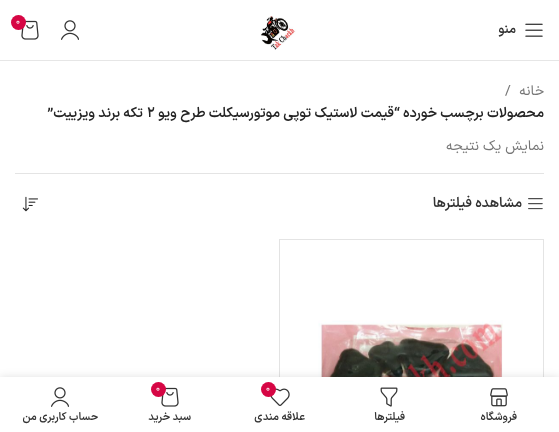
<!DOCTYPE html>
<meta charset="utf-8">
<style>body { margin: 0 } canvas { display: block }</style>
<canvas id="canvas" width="559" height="432"></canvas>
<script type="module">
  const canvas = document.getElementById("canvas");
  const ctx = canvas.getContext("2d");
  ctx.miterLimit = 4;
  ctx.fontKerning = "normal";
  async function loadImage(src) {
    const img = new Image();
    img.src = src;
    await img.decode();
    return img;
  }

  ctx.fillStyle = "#ffffff";
  ctx.fillRect(0, 0, 559, 432);
  ctx.fillStyle = "#e6e6e6";
  ctx.fillRect(0, 60, 559, 1);
  ctx.drawImage(await loadImage("img1.png"), 260, 16, 36, 34);
  ctx.drawImage(await loadImage("img2.png"), 61, 20, 18, 20);
  ctx.drawImage(await loadImage("img3.png"), 21, 20, 18, 20);
  ctx.fillStyle = "#d60644";
  ctx.beginPath();
  ctx.arc(18.5, 22.5, 7.5, 0, Math.PI * 2);
  ctx.fill();
  ctx.font = "9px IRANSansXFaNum";
  ctx.fillStyle = "#ffffff";
  ctx.fillText("0", 16, 24);
  ctx.drawImage(await loadImage("img4.png"), 525, 23, 18, 14);
  ctx.direction = "rtl";
  ctx.font = "600 13px IRANSansXFaNum";
  ctx.fillStyle = "#333333";
  ctx.fillText("منو", 516, 33);
  ctx.fillStyle = "#e4e4e4";
  ctx.fillRect(15, 173, 529, 1);
  ctx.font = "14px IRANSansXFaNum";
  ctx.fillStyle = "#767676";
  ctx.fillText("خانه", 544, 95);
  ctx.direction = "ltr";
  ctx.fillText("/", 505, 95);
  ctx.direction = "rtl";
  ctx.font = "600 14px IRANSansXFaNum";
  ctx.fillStyle = "#242424";
  ctx.fillText("محصولات برچسب خورده", 544, 117);
  ctx.fillText("“قیمت لاستیک توپی موتورسیکلت طرح ویو", 400, 117);
  ctx.direction = "ltr";
  ctx.fillText("2", 147, 117);
  ctx.direction = "rtl";
  ctx.fillText("تکه برند ویزییت”", 143, 117);
  ctx.font = "14px IRANSansXFaNum";
  ctx.fillStyle = "#767676";
  ctx.fillText("نمایش یک نتیجه", 544, 150);
  ctx.drawImage(await loadImage("img5.png"), 528, 198, 15, 12);
  ctx.font = "600 14px IRANSansXFaNum";
  ctx.fillStyle = "#333333";
  ctx.fillText("مشاهده فیلترها", 522, 207);
  ctx.drawImage(await loadImage("img6.png"), 22, 196, 16, 16);
  ctx.fillStyle = "#e4e4e4";
  ctx.fillRect(543, 239, 1, 138);
  ctx.beginPath();
  ctx.moveTo(279, 239);
  ctx.lineTo(543, 239);
  ctx.lineTo(543, 240);
  ctx.lineTo(280, 240);
  ctx.closePath();
  ctx.fill();
  ctx.fillStyle = "rgba(0, 0, 0, 0.11)";
  ctx.beginPath();
  ctx.moveTo(279, 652);
  ctx.lineTo(279, 239);
  ctx.lineTo(280, 240);
  ctx.lineTo(280, 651);
  ctx.closePath();
  ctx.fill();
  ctx.drawImage(await loadImage("img7.png"), 318, 320, 185, 57);
  ctx.fillStyle = "rgba(0, 0, 0, 0.12)";
  ctx.filter = "blur(4.5px)";
  ctx.beginPath();
  ctx.rect(0, 377, 559, 55);
  ctx.fill();
  ctx.filter = "none";
  ctx.fillStyle = "#ffffff";
  ctx.fillRect(0, 377, 559, 55);
  ctx.drawImage(await loadImage("img8.png"), 490, 388, 18, 19);
  ctx.font = "600 11px IRANSansXFaNum";
  ctx.fillStyle = "#333333";
  ctx.fillText("فروشگاه", 517, 420);
  ctx.drawImage(await loadImage("img9.png"), 380, 387, 18, 20);
  ctx.fillText("فیلترها", 405, 420);
  ctx.drawImage(await loadImage("img10.png"), 270, 388, 20, 18);
  ctx.fillStyle = "#d60644";
  ctx.beginPath();
  ctx.arc(268.5, 389.5, 7.5, 0, Math.PI * 2);
  ctx.fill();
  ctx.direction = "ltr";
  ctx.font = "9px IRANSansXFaNum";
  ctx.fillStyle = "#ffffff";
  ctx.fillText("0", 266, 391);
  ctx.direction = "rtl";
  ctx.font = "600 11px IRANSansXFaNum";
  ctx.fillStyle = "#333333";
  ctx.fillText("علاقه مندی", 305, 420);
  ctx.drawImage(await loadImage("img3.png"), 161, 387, 18, 20);
  ctx.fillStyle = "#d60644";
  ctx.beginPath();
  ctx.arc(158.5, 389.5, 7.5, 0, Math.PI * 2);
  ctx.fill();
  ctx.direction = "ltr";
  ctx.font = "9px IRANSansXFaNum";
  ctx.fillStyle = "#ffffff";
  ctx.fillText("0", 156, 391);
  ctx.direction = "rtl";
  ctx.font = "600 11px IRANSansXFaNum";
  ctx.fillStyle = "#333333";
  ctx.fillText("سبد خرید", 191, 420);
  ctx.drawImage(await loadImage("img2.png"), 51, 387, 18, 20);
  ctx.fillText("حساب کاربری من", 98, 420);
</script>
